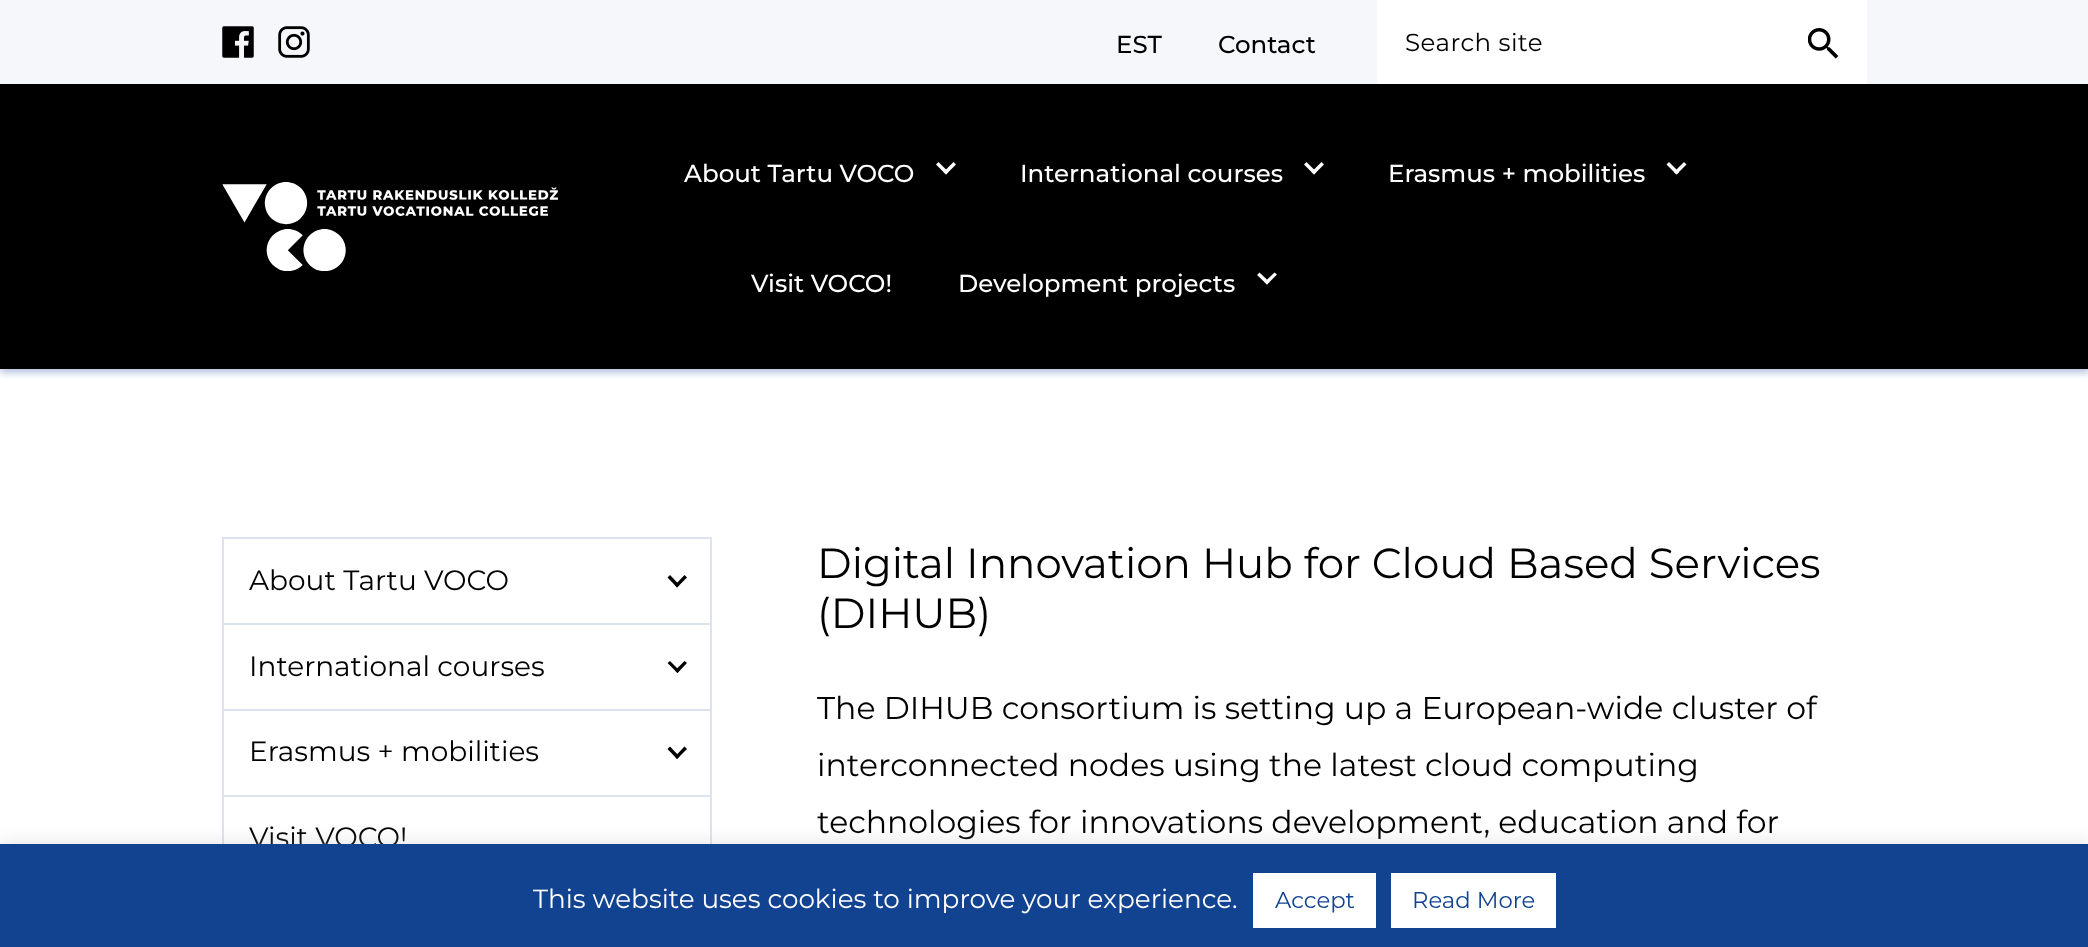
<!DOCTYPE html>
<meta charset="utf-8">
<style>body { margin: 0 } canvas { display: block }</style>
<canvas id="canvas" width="2088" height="947"></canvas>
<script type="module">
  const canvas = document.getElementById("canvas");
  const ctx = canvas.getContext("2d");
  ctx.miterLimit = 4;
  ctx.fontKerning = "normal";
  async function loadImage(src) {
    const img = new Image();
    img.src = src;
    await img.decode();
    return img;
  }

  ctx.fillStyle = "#ffffff";
  ctx.fillRect(0, 0, 2088, 947);
  ctx.fillStyle = "rgba(17, 67, 145, 0.3)";
  ctx.filter = "blur(3.5px)";
  ctx.beginPath();
  ctx.rect(0, 88, 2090, 285);
  ctx.fill();
  ctx.filter = "none";
  ctx.fillStyle = "#f5f7fa";
  ctx.fillRect(0, 0, 2088, 84);
  ctx.drawImage(await loadImage("img1.png"), 222, 26, 32, 32);
  ctx.drawImage(await loadImage("img2.png"), 278, 26, 32, 32);
  ctx.font = "500 24.5px Montserrat";
  ctx.fillStyle = "#000000";
  ctx.fillText("EST", 1116, 53);
  ctx.fillText("Contact", 1218, 53);
  ctx.fillStyle = "#ffffff";
  ctx.fillRect(1377, 0, 490, 84);
  ctx.letterSpacing = "0.5px";
  ctx.font = "24.5px Montserrat";
  ctx.fillStyle = "#000000";
  ctx.fillText("Search site", 1405, 51);
  ctx.drawImage(await loadImage("img3.png"), 1808, 28, 31, 31);
  ctx.fillRect(0, 84, 2088, 285);
  ctx.drawImage(await loadImage("img4.png"), 222, 182, 336, 89);
  ctx.letterSpacing = "0px";
  ctx.font = "500 24.5px Montserrat";
  ctx.fillStyle = "#ffffff";
  ctx.fillText("About Tartu VOCO", 684, 182);
  ctx.beginPath();
  ctx.moveTo(956, 164.5);
  ctx.lineTo(946, 174.5);
  ctx.lineTo(943.5, 172);
  ctx.lineTo(953.5, 162);
  ctx.closePath();
  ctx.fill();
  ctx.beginPath();
  ctx.moveTo(948.5, 172);
  ctx.lineTo(946, 174.5);
  ctx.lineTo(936, 164.5);
  ctx.lineTo(938.5, 162);
  ctx.closePath();
  ctx.fill();
  ctx.fillText("International courses", 1020, 182);
  ctx.beginPath();
  ctx.moveTo(1324, 164.5);
  ctx.lineTo(1314, 174.5);
  ctx.lineTo(1311.5, 172);
  ctx.lineTo(1321.5, 162);
  ctx.closePath();
  ctx.fill();
  ctx.beginPath();
  ctx.moveTo(1316.5, 172);
  ctx.lineTo(1314, 174.5);
  ctx.lineTo(1304, 164.5);
  ctx.lineTo(1306.5, 162);
  ctx.closePath();
  ctx.fill();
  ctx.fillText("Erasmus + mobilities", 1388, 182);
  ctx.beginPath();
  ctx.moveTo(1686.5, 164.5);
  ctx.lineTo(1676.5, 174.5);
  ctx.lineTo(1674, 172);
  ctx.lineTo(1684, 162);
  ctx.closePath();
  ctx.fill();
  ctx.beginPath();
  ctx.moveTo(1679, 172);
  ctx.lineTo(1676.5, 174.5);
  ctx.lineTo(1666.5, 164.5);
  ctx.lineTo(1669, 162);
  ctx.closePath();
  ctx.fill();
  ctx.fillText("Visit VOCO!", 751, 292);
  ctx.fillText("Development projects", 958, 292);
  ctx.beginPath();
  ctx.moveTo(1277, 274.5);
  ctx.lineTo(1267, 284.5);
  ctx.lineTo(1264.5, 282);
  ctx.lineTo(1274.5, 272.5);
  ctx.closePath();
  ctx.fill();
  ctx.beginPath();
  ctx.moveTo(1269.5, 282);
  ctx.lineTo(1267, 284.5);
  ctx.lineTo(1257, 275);
  ctx.lineTo(1259.5, 272.5);
  ctx.closePath();
  ctx.fill();
  ctx.strokeStyle = "#dde3ed";
  ctx.lineWidth = 2;
  ctx.strokeRect(223, 538, 488, 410);
  ctx.font = "28px Montserrat";
  ctx.fillStyle = "#000000";
  ctx.fillText("About Tartu VOCO", 249, 590);
  ctx.beginPath();
  ctx.moveTo(687, 577.5);
  ctx.lineTo(677, 587.5);
  ctx.lineTo(675, 585);
  ctx.lineTo(684.5, 575);
  ctx.closePath();
  ctx.fill();
  ctx.beginPath();
  ctx.moveTo(679.5, 585);
  ctx.lineTo(677, 587.5);
  ctx.lineTo(667.5, 577.5);
  ctx.lineTo(670, 575);
  ctx.closePath();
  ctx.fill();
  ctx.fillStyle = "#dde3ed";
  ctx.fillRect(224, 623, 487, 2);
  ctx.fillStyle = "#000000";
  ctx.fillText("International courses", 249, 676);
  ctx.beginPath();
  ctx.moveTo(687, 663);
  ctx.lineTo(677.5, 673);
  ctx.lineTo(675, 670.5);
  ctx.lineTo(684.5, 661);
  ctx.closePath();
  ctx.fill();
  ctx.beginPath();
  ctx.moveTo(679.5, 670.5);
  ctx.lineTo(677.5, 673);
  ctx.lineTo(667.5, 663);
  ctx.lineTo(670, 661);
  ctx.closePath();
  ctx.fill();
  ctx.fillStyle = "#dde3ed";
  ctx.fillRect(224, 709, 487, 2);
  ctx.fillStyle = "#000000";
  ctx.fillText("Erasmus + mobilities", 249, 761);
  ctx.beginPath();
  ctx.moveTo(687, 749);
  ctx.lineTo(677, 759);
  ctx.lineTo(675, 756.5);
  ctx.lineTo(684.5, 746.5);
  ctx.closePath();
  ctx.fill();
  ctx.beginPath();
  ctx.moveTo(679.5, 756.5);
  ctx.lineTo(677, 759);
  ctx.lineTo(667.5, 749);
  ctx.lineTo(670, 746.5);
  ctx.closePath();
  ctx.fill();
  ctx.fillStyle = "#dde3ed";
  ctx.fillRect(224, 795, 487, 2);
  ctx.fillStyle = "#000000";
  ctx.fillText("Visit VOCO!", 249, 847);
  ctx.font = "42px Montserrat";
  ctx.fillText("Digital Innovation Hub for Cloud Based Services", 817, 578);
  ctx.fillText("(DIHUB)", 817, 628);
  ctx.font = "31.5px Montserrat";
  ctx.fillText("The DIHUB consortium is setting up a European-wide cluster of", 817, 719);
  ctx.fillText("interconnected nodes using the latest cloud computing", 817, 776);
  ctx.fillText("technologies for innovations development, education and for", 817, 833);
  ctx.fillStyle = "rgba(172, 171, 171, 0.3)";
  ctx.filter = "blur(9px)";
  ctx.beginPath();
  ctx.rect(0, 842, 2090, 105);
  ctx.fill();
  ctx.filter = "none";
  ctx.fillStyle = "#114391";
  ctx.fillRect(0, 844, 2088, 103);
  ctx.font = "26.25px Montserrat";
  ctx.fillStyle = "#ffffff";
  ctx.fillText("This website uses cookies to improve your experience.", 533, 908);
  ctx.fillRect(1253, 873, 123, 55);
  ctx.font = "22.75px Montserrat";
  ctx.fillStyle = "#114391";
  ctx.fillText("Accept", 1275, 908);
  ctx.fillStyle = "#ffffff";
  ctx.fillRect(1391, 873, 165, 55);
  ctx.fillStyle = "#114391";
  ctx.fillText("Read More", 1412, 908);
</script>
